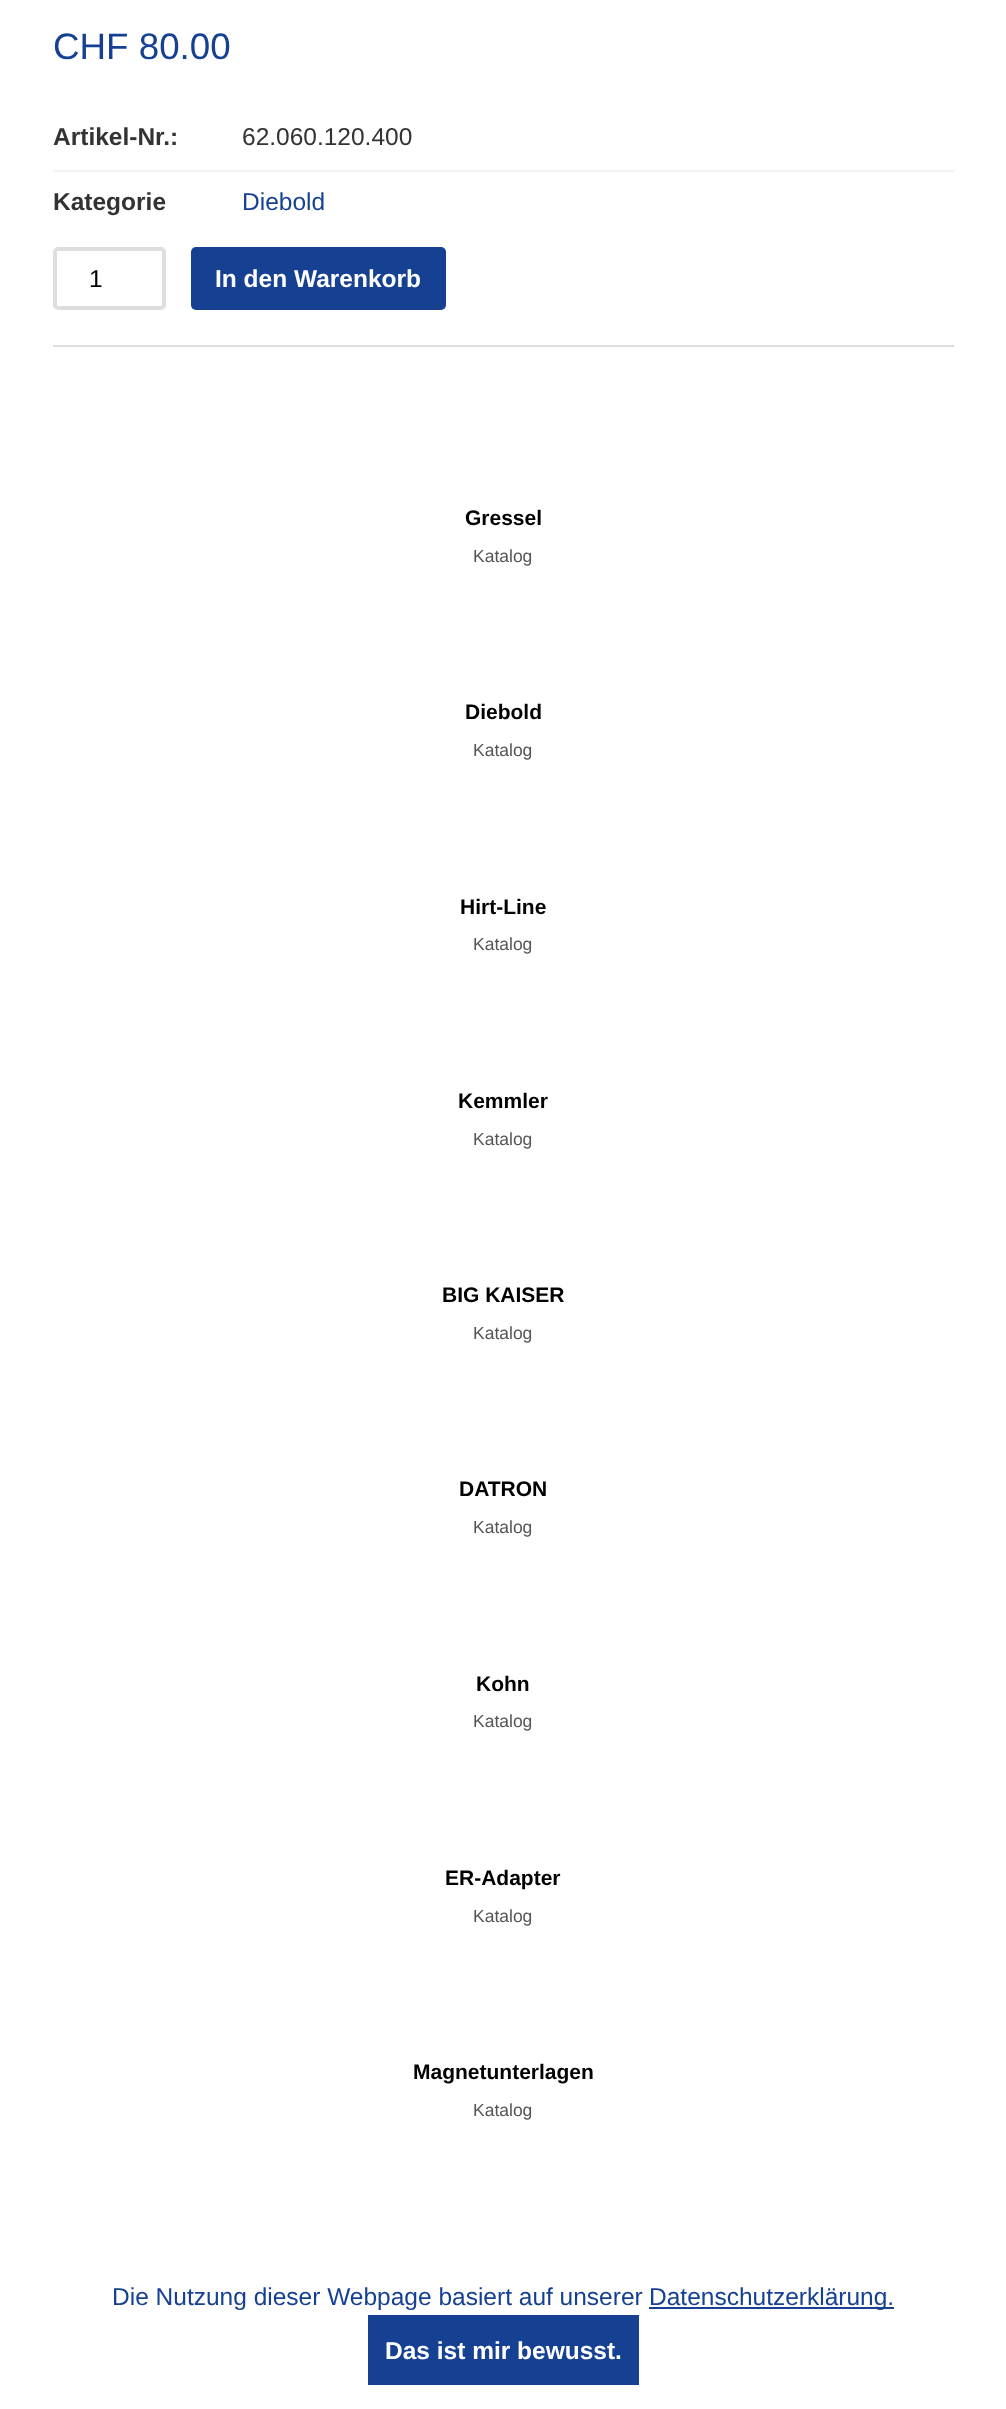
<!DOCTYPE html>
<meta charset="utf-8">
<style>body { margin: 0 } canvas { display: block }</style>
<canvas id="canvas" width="1006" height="2409"></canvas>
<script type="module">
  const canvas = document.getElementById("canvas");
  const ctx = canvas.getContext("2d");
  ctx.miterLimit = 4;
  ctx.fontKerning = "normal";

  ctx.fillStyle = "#ffffff";
  ctx.fillRect(0, 0, 1006, 2409);
  ctx.font = "36.75px Liberation Sans";
  ctx.fillStyle = "#164193";
  ctx.fillText("CHF 80.00", 53, 59);
  ctx.font = "bold 24.5px Liberation Sans";
  ctx.fillStyle = "#333333";
  ctx.fillText("Artikel-Nr.:", 53, 145);
  ctx.font = "24.5px Liberation Sans";
  ctx.fillText("62.060.120.400", 242, 145);
  ctx.fillStyle = "#f2f2f2";
  ctx.fillRect(53, 170, 901, 2);
  ctx.font = "bold 24.5px Liberation Sans";
  ctx.fillStyle = "#333333";
  ctx.fillText("Kategorie", 53, 210);
  ctx.font = "24.5px Liberation Sans";
  ctx.fillStyle = "#164193";
  ctx.fillText("Diebold", 242, 210);
  ctx.beginPath();
  ctx.roundRect(55, 249, 109, 59, 3);
  ctx.strokeStyle = "#dedede";
  ctx.lineWidth = 4;
  ctx.stroke();
  ctx.fillStyle = "#000000";
  ctx.fillText("1", 89, 287);
  ctx.fillStyle = "#164193";
  ctx.beginPath();
  ctx.roundRect(191, 247, 255, 63, 5);
  ctx.fill();
  ctx.font = "bold 24.5px Liberation Sans";
  ctx.fillStyle = "#ffffff";
  ctx.fillText("In den Warenkorb", 215, 287);
  ctx.fillStyle = "#dedede";
  ctx.fillRect(53, 345, 901, 2);
  ctx.font = "bold 21px Liberation Sans";
  ctx.fillStyle = "#000000";
  ctx.fillText("Gressel", 465, 525);
  ctx.font = "17.5px Liberation Sans";
  ctx.fillStyle = "#555555";
  ctx.fillText("Katalog", 473, 562);
  ctx.font = "bold 21px Liberation Sans";
  ctx.fillStyle = "#000000";
  ctx.fillText("Diebold", 465, 719);
  ctx.font = "17.5px Liberation Sans";
  ctx.fillStyle = "#555555";
  ctx.fillText("Katalog", 473, 756);
  ctx.font = "bold 21px Liberation Sans";
  ctx.fillStyle = "#000000";
  ctx.fillText("Hirt-Line", 460, 914);
  ctx.font = "17.5px Liberation Sans";
  ctx.fillStyle = "#555555";
  ctx.fillText("Katalog", 473, 950);
  ctx.font = "bold 21px Liberation Sans";
  ctx.fillStyle = "#000000";
  ctx.fillText("Kemmler", 458, 1108);
  ctx.font = "17.5px Liberation Sans";
  ctx.fillStyle = "#555555";
  ctx.fillText("Katalog", 473, 1145);
  ctx.font = "bold 21px Liberation Sans";
  ctx.fillStyle = "#000000";
  ctx.fillText("BIG KAISER", 442, 1302);
  ctx.font = "17.5px Liberation Sans";
  ctx.fillStyle = "#555555";
  ctx.fillText("Katalog", 473, 1339);
  ctx.font = "bold 21px Liberation Sans";
  ctx.fillStyle = "#000000";
  ctx.fillText("DATRON", 459, 1496);
  ctx.font = "17.5px Liberation Sans";
  ctx.fillStyle = "#555555";
  ctx.fillText("Katalog", 473, 1533);
  ctx.font = "bold 21px Liberation Sans";
  ctx.fillStyle = "#000000";
  ctx.fillText("Kohn", 476, 1691);
  ctx.font = "17.5px Liberation Sans";
  ctx.fillStyle = "#555555";
  ctx.fillText("Katalog", 473, 1727);
  ctx.font = "bold 21px Liberation Sans";
  ctx.fillStyle = "#000000";
  ctx.fillText("ER-Adapter", 445, 1885);
  ctx.font = "17.5px Liberation Sans";
  ctx.fillStyle = "#555555";
  ctx.fillText("Katalog", 473, 1922);
  ctx.font = "bold 21px Liberation Sans";
  ctx.fillStyle = "#000000";
  ctx.fillText("Magnetunterlagen", 413, 2079);
  ctx.font = "17.5px Liberation Sans";
  ctx.fillStyle = "#555555";
  ctx.fillText("Katalog", 473, 2116);
  ctx.font = "24.5px Liberation Sans";
  ctx.fillStyle = "#164193";
  ctx.fillText("Die Nutzung dieser Webpage basiert auf unserer", 112, 2305);
  ctx.fillRect(649, 2307, 245, 2);
  ctx.fillText("Datenschutzerklärung.", 649, 2305);
  ctx.fillRect(368, 2315, 271, 70);
  ctx.font = "bold 24.5px Liberation Sans";
  ctx.fillStyle = "#ffffff";
  ctx.fillText("Das ist mir bewusst.", 385, 2359);
</script>
